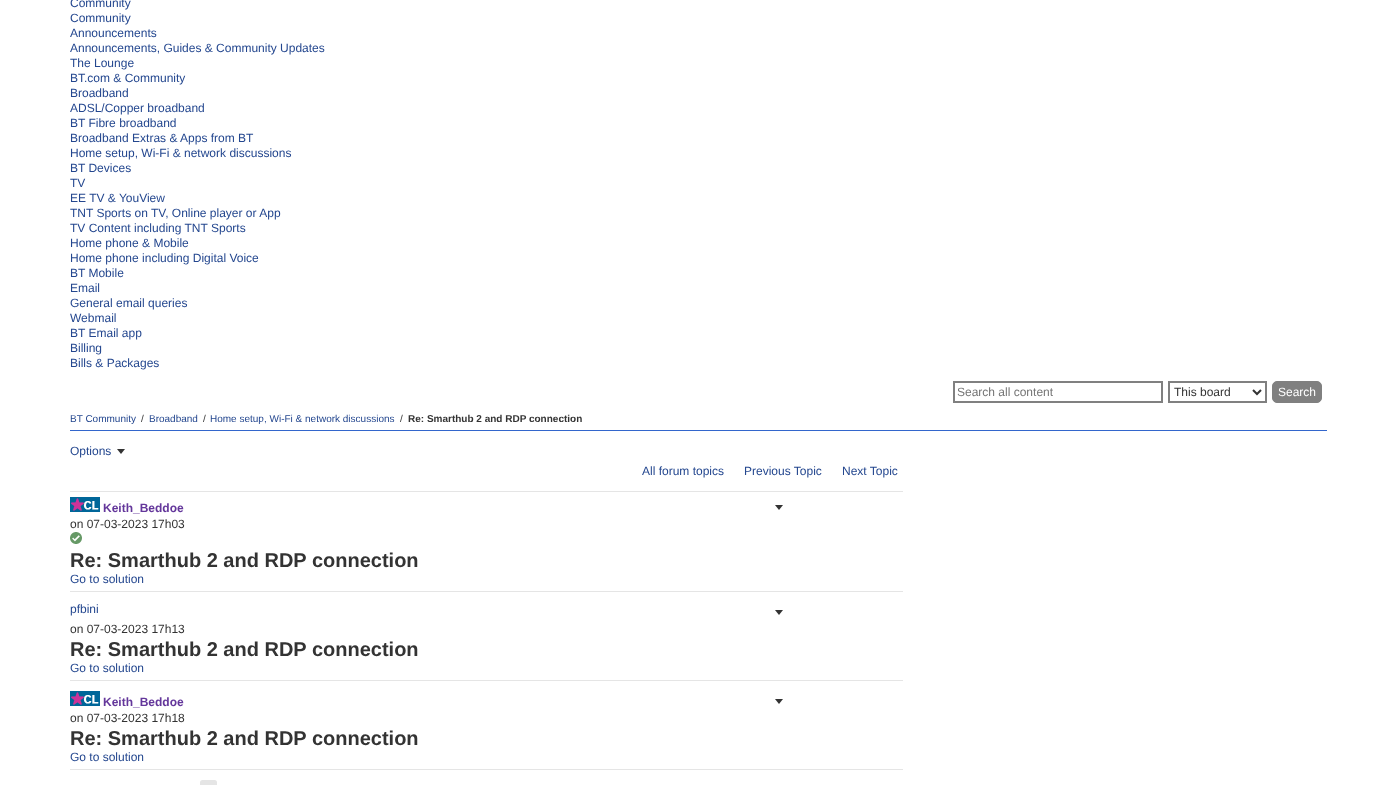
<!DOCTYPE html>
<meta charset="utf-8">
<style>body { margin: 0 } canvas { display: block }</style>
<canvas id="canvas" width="1397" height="785"></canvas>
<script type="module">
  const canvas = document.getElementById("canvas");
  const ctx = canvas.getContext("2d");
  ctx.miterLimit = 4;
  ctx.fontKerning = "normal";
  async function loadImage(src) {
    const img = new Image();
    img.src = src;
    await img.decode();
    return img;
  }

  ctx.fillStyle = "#ffffff";
  ctx.fillRect(0, 0, 1397, 785);
  ctx.font = "12px Liberation Sans";
  ctx.fillStyle = "#24478f";
  ctx.fillText("Community", 70, 7);
  ctx.fillText("Community", 70, 22);
  ctx.fillText("Announcements", 70, 37);
  ctx.fillText("Announcements, Guides & Community Updates", 70, 52);
  ctx.fillText("The Lounge", 70, 67);
  ctx.fillText("BT.com & Community", 70, 82);
  ctx.fillText("Broadband", 70, 97);
  ctx.fillText("ADSL/Copper broadband", 70, 112);
  ctx.fillText("BT Fibre broadband", 70, 127);
  ctx.fillText("Broadband Extras & Apps from BT", 70, 142);
  ctx.fillText("Home setup, Wi-Fi & network discussions", 70, 157);
  ctx.fillText("BT Devices", 70, 172);
  ctx.fillText("TV", 70, 187);
  ctx.fillText("EE TV & YouView", 70, 202);
  ctx.fillText("TNT Sports on TV, Online player or App", 70, 217);
  ctx.fillText("TV Content including TNT Sports", 70, 232);
  ctx.fillText("Home phone & Mobile", 70, 247);
  ctx.fillText("Home phone including Digital Voice", 70, 262);
  ctx.fillText("BT Mobile", 70, 277);
  ctx.fillText("Email", 70, 292);
  ctx.fillText("General email queries", 70, 307);
  ctx.fillText("Webmail", 70, 322);
  ctx.fillText("BT Email app", 70, 337);
  ctx.fillText("Billing", 70, 352);
  ctx.fillText("Bills & Packages", 70, 367);
  ctx.strokeStyle = "#808080";
  ctx.lineWidth = 2;
  ctx.strokeRect(954, 382, 208, 20);
  ctx.fillStyle = "#757575";
  ctx.fillText("Search all content", 957, 396);
  ctx.strokeRect(1169, 382, 97, 20);
  ctx.beginPath();
  ctx.moveTo(1253, 390);
  ctx.lineTo(1257, 394);
  ctx.lineTo(1261, 390);
  ctx.strokeStyle = "#333333";
  ctx.stroke();
  ctx.fillStyle = "#333333";
  ctx.fillText("This board", 1174, 396);
  ctx.fillStyle = "#808080";
  ctx.beginPath();
  ctx.roundRect(1272.5, 381.5, 49, 21, 4.5);
  ctx.fill();
  ctx.strokeStyle = "#808080";
  ctx.lineWidth = 1;
  ctx.stroke();
  ctx.fillStyle = "#ffffff";
  ctx.fillText("Search", 1278, 396);
  ctx.fillStyle = "#3366cc";
  ctx.fillRect(70, 430, 1257, 1);
  ctx.font = "10px Liberation Sans";
  ctx.fillStyle = "#24478f";
  ctx.fillText("BT Community", 70, 422);
  ctx.fillStyle = "#333333";
  ctx.fillText("/", 141, 422);
  ctx.fillStyle = "#24478f";
  ctx.fillText("Broadband", 149, 422);
  ctx.fillStyle = "#333333";
  ctx.fillText("/", 203, 422);
  ctx.fillStyle = "#24478f";
  ctx.fillText("Home setup, Wi-Fi & network discussions", 210, 422);
  ctx.fillStyle = "#333333";
  ctx.fillText("/", 400, 422);
  ctx.font = "bold 10px Liberation Sans";
  ctx.fillText("Re: Smarthub 2 and RDP connection", 408, 422);
  ctx.font = "12px Liberation Sans";
  ctx.fillStyle = "#24478f";
  ctx.fillText("Options", 70, 455);
  ctx.drawImage(await loadImage("img1.png"), 117, 449, 8, 5);
  ctx.fillText("All forum topics", 642, 475);
  ctx.fillText("Previous Topic", 744, 475);
  ctx.fillText("Next Topic", 842, 475);
  ctx.fillStyle = "#e5e5e5";
  ctx.fillRect(70, 491, 833, 1);
  ctx.fillRect(70, 591, 833, 1);
  ctx.drawImage(await loadImage("img2.png"), 70, 497, 30, 15);
  ctx.font = "bold 12px Liberation Sans";
  ctx.fillStyle = "#64379b";
  ctx.fillText("Keith_Beddoe", 103, 512);
  ctx.drawImage(await loadImage("img1.png"), 775, 505, 8, 5);
  ctx.font = "12px Liberation Sans";
  ctx.fillStyle = "#333333";
  ctx.fillText("on 07-03-2023 17h03", 70, 528);
  ctx.drawImage(await loadImage("img3.png"), 70, 532, 12, 12);
  ctx.font = "bold 20px Liberation Sans";
  ctx.fillText("Re: Smarthub 2 and RDP connection", 70, 567);
  ctx.font = "12px Liberation Sans";
  ctx.fillStyle = "#24478f";
  ctx.fillText("Go to solution", 70, 583);
  ctx.fillStyle = "#e5e5e5";
  ctx.fillRect(70, 680, 833, 1);
  ctx.fillStyle = "#24478f";
  ctx.fillText("pfbini", 70, 613);
  ctx.drawImage(await loadImage("img1.png"), 775, 610, 8, 5);
  ctx.fillStyle = "#333333";
  ctx.fillText("on 07-03-2023 17h13", 70, 633);
  ctx.font = "bold 20px Liberation Sans";
  ctx.fillText("Re: Smarthub 2 and RDP connection", 70, 656);
  ctx.font = "12px Liberation Sans";
  ctx.fillStyle = "#24478f";
  ctx.fillText("Go to solution", 70, 672);
  ctx.fillStyle = "#e5e5e5";
  ctx.fillRect(70, 769, 833, 1);
  ctx.drawImage(await loadImage("img2.png"), 70, 691, 30, 15);
  ctx.font = "bold 12px Liberation Sans";
  ctx.fillStyle = "#64379b";
  ctx.fillText("Keith_Beddoe", 103, 706);
  ctx.drawImage(await loadImage("img1.png"), 775, 699, 8, 5);
  ctx.font = "12px Liberation Sans";
  ctx.fillStyle = "#333333";
  ctx.fillText("on 07-03-2023 17h18", 70, 722);
  ctx.font = "bold 20px Liberation Sans";
  ctx.fillText("Re: Smarthub 2 and RDP connection", 70, 745);
  ctx.font = "12px Liberation Sans";
  ctx.fillStyle = "#24478f";
  ctx.fillText("Go to solution", 70, 761);
  ctx.fillStyle = "#e5e5e5";
  ctx.beginPath();
  ctx.roundRect(200, 780, 17, 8, 2.5);
  ctx.fill();
</script>
